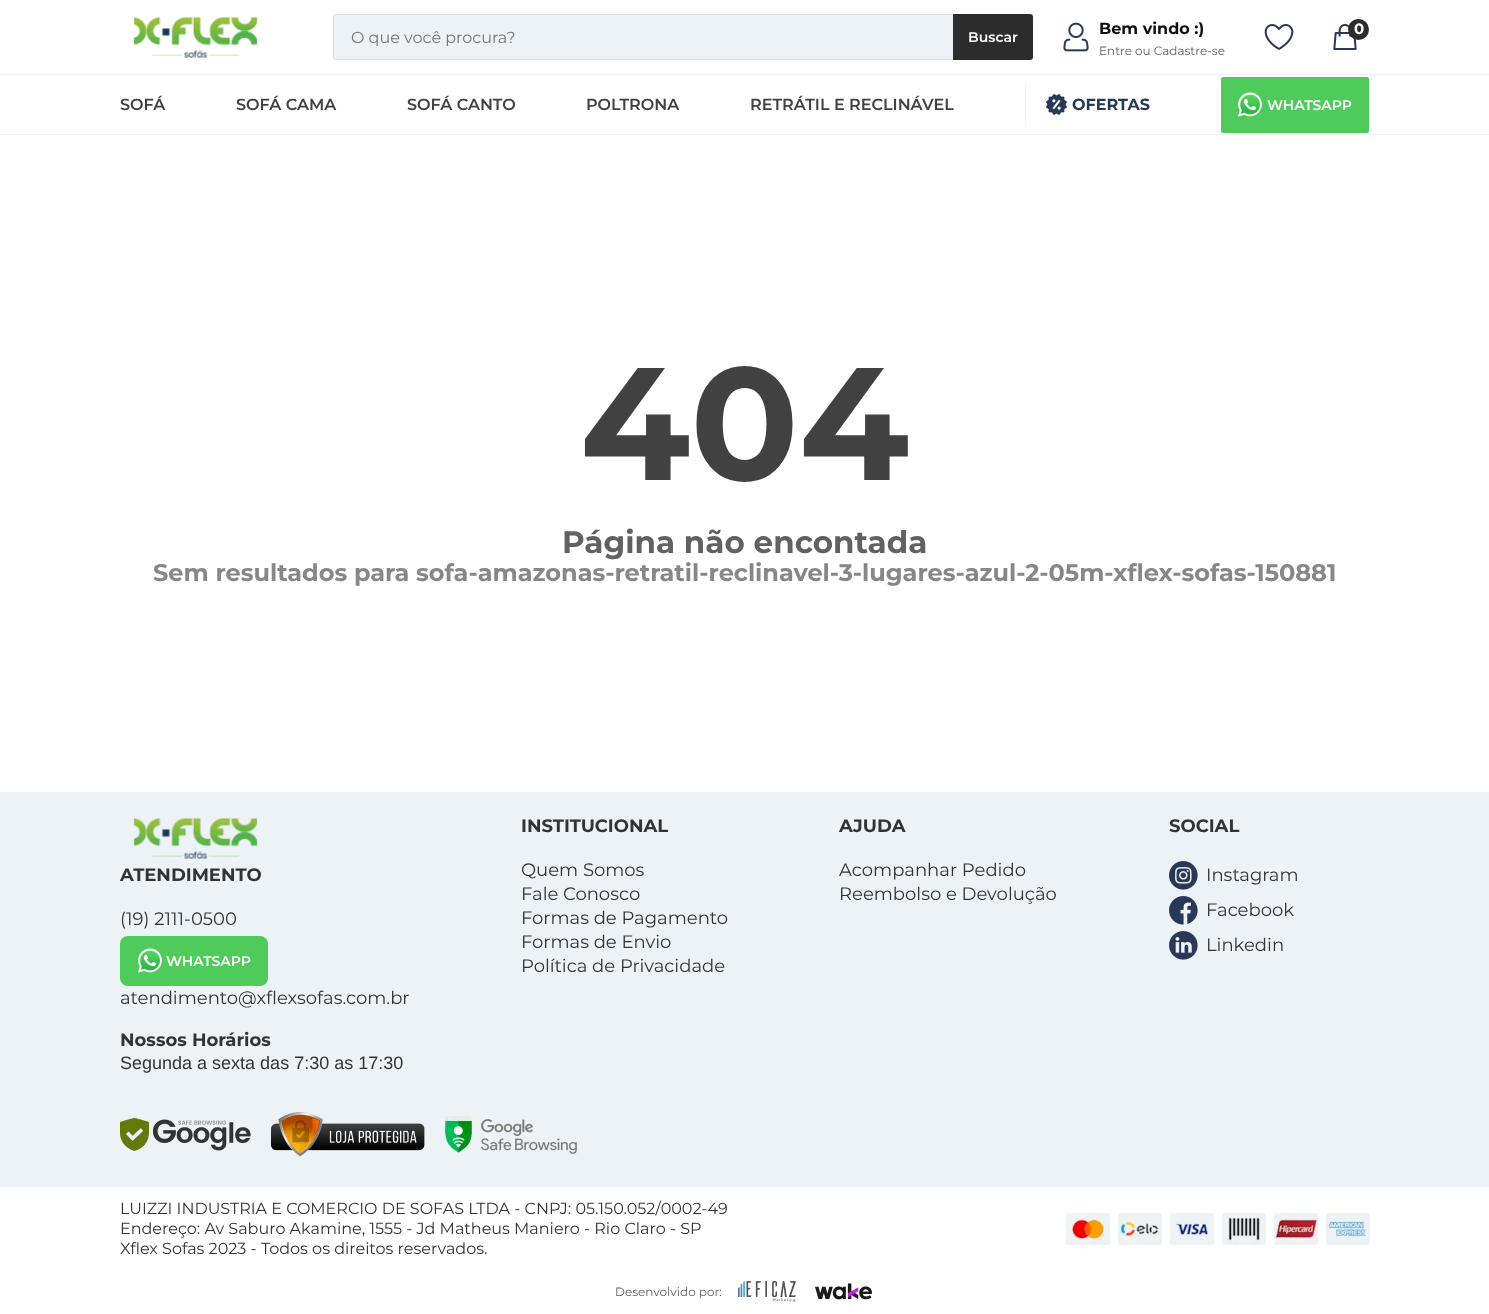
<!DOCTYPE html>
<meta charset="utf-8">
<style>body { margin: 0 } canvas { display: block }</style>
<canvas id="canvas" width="1489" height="1314"></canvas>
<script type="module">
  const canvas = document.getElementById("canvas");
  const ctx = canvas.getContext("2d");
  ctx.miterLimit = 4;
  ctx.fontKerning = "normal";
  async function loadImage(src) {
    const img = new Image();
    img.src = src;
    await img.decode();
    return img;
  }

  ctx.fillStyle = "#ffffff";
  ctx.fillRect(0, 0, 1489, 1314);
  ctx.drawImage(await loadImage("img1.png"), 133, 17, 125, 41);
  ctx.fillStyle = "#edf2f7";
  ctx.beginPath();
  ctx.roundRect(334, 15, 619, 44, [2, 0, 0, 2]);
  ctx.fill();
  ctx.fillStyle = "#e0e0e0";
  ctx.beginPath();
  ctx.moveTo(336, 14);
  ctx.lineTo(953, 14);
  ctx.lineTo(953, 60);
  ctx.lineTo(336, 60);
  ctx.bezierCurveTo(334, 60, 333, 59, 333, 57);
  ctx.lineTo(333, 17);
  ctx.bezierCurveTo(333, 15, 334, 14, 336, 14);
  ctx.closePath();
  ctx.moveTo(336, 15);
  ctx.lineTo(953, 15);
  ctx.lineTo(953, 59);
  ctx.lineTo(336, 59);
  ctx.bezierCurveTo(335, 59, 334, 58, 334, 57);
  ctx.lineTo(334, 17);
  ctx.bezierCurveTo(334, 16, 335, 15, 336, 15);
  ctx.closePath();
  ctx.fill("evenodd");
  ctx.font = "16px Montserrat";
  ctx.fillStyle = "#757575";
  ctx.fillText("O que você procura?", 351, 43);
  ctx.fillStyle = "#2c2c2c";
  ctx.beginPath();
  ctx.roundRect(953, 14, 80, 46, [0, 3, 3, 0]);
  ctx.fill();
  ctx.font = "600 14px Montserrat";
  ctx.fillStyle = "#ffffff";
  ctx.fillText("Buscar", 968, 42);
  ctx.drawImage(await loadImage("img2.png"), 1063, 22, 26, 30);
  ctx.font = "bold 16px Montserrat";
  ctx.fillStyle = "#0f0f0f";
  ctx.fillText("Bem vindo :)", 1099, 34);
  ctx.font = "12px Montserrat";
  ctx.fillStyle = "#616161";
  ctx.fillText("Entre ou Cadastre-se", 1099, 55);
  ctx.drawImage(await loadImage("img3.png"), 1264, 24, 30, 26);
  ctx.drawImage(await loadImage("img4.png"), 1333, 24, 24, 26);
  ctx.fillStyle = "#2c2c2c";
  ctx.beginPath();
  ctx.arc(1358.5, 29.5, 10.5, 0, Math.PI * 2);
  ctx.fill();
  ctx.font = "bold 15px Montserrat";
  ctx.fillStyle = "#ffffff";
  ctx.fillText("0", 1354, 34);
  ctx.fillStyle = "#f2f2f2";
  ctx.fillRect(0, 74, 1489, 1);
  ctx.fillRect(0, 134, 1489, 1);
  ctx.font = "600 16px Montserrat";
  ctx.fillStyle = "#414141";
  ctx.fillText("SOFÁ", 120, 110);
  ctx.fillText("SOFÁ CAMA", 236, 110);
  ctx.fillText("SOFÁ CANTO", 407, 110);
  ctx.fillText("POLTRONA", 586, 110);
  ctx.fillText("RETRÁTIL E RECLINÁVEL", 750, 110);
  ctx.fillStyle = "#f2f2f2";
  ctx.fillRect(1025, 83, 1, 43);
  ctx.drawImage(await loadImage("img5.png"), 1046, 94, 21, 21);
  ctx.font = "bold 16px Montserrat";
  ctx.fillStyle = "#2a3857";
  ctx.fillText("OFERTAS", 1072, 110);
  ctx.fillStyle = "#4ecb5b";
  ctx.beginPath();
  ctx.roundRect(1221, 77, 148, 56, 2);
  ctx.fill();
  ctx.drawImage(await loadImage("img6.png"), 1238, 92, 24, 25);
  ctx.font = "600 14px Montserrat";
  ctx.fillStyle = "#ffffff";
  ctx.fillText("WHATSAPP", 1267, 110);
  ctx.font = "bold 160px Montserrat";
  ctx.fillStyle = "#414141";
  ctx.fillText("404", 580, 480);
  ctx.font = "bold 31px Montserrat";
  ctx.fillStyle = "#616161";
  ctx.fillText("Página não encontada", 562, 553);
  ctx.font = "bold 24px Montserrat";
  ctx.fillStyle = "#878787";
  ctx.fillText("Sem resultados para sofa-amazonas-retratil-reclinavel-3-lugares-azul-2-05m-xflex-sofas-150881", 153, 581);
  ctx.fillStyle = "#edf2f7";
  ctx.fillRect(0, 792, 1489, 395);
  ctx.drawImage(await loadImage("img7.png"), 133, 818, 125, 41);
  ctx.font = "bold 18px Montserrat";
  ctx.fillStyle = "#333333";
  ctx.fillText("ATENDIMENTO", 120, 881);
  ctx.font = "18px Montserrat";
  ctx.fillText("(19) 2111-0500", 120, 925);
  ctx.fillStyle = "#4ecb5b";
  ctx.beginPath();
  ctx.roundRect(120, 936, 148, 50, 8);
  ctx.fill();
  ctx.drawImage(await loadImage("img6.png"), 138, 948, 24, 25);
  ctx.font = "600 14px Montserrat";
  ctx.fillStyle = "#ffffff";
  ctx.fillText("WHATSAPP", 166, 966);
  ctx.font = "18px Montserrat";
  ctx.fillStyle = "#333333";
  ctx.fillText("atendimento@xflexsofas.com.br", 120, 1004);
  ctx.font = "bold 18px Montserrat";
  ctx.fillText("Nossos Horários", 120, 1046);
  ctx.font = "18px Liberation Sans";
  ctx.fillText("Segunda a sexta das 7:30 as 17:30", 120, 1069);
  ctx.font = "bold 18px Montserrat";
  ctx.fillText("INSTITUCIONAL", 521, 832);
  ctx.font = "18px Montserrat";
  ctx.fillText("Quem Somos", 521, 876);
  ctx.fillText("Fale Conosco", 521, 900);
  ctx.fillText("Formas de Pagamento", 521, 924);
  ctx.fillText("Formas de Envio", 521, 948);
  ctx.fillText("Política de Privacidade", 521, 972);
  ctx.font = "bold 18px Montserrat";
  ctx.fillText("AJUDA", 839, 832);
  ctx.font = "18px Montserrat";
  ctx.fillText("Acompanhar Pedido", 839, 876);
  ctx.fillText("Reembolso e Devolução", 839, 900);
  ctx.font = "bold 18px Montserrat";
  ctx.fillText("SOCIAL", 1169, 832);
  ctx.drawImage(await loadImage("img8.png"), 1169, 861, 29, 29);
  ctx.font = "18px Montserrat";
  ctx.fillText("Instagram", 1206, 881);
  ctx.drawImage(await loadImage("img9.png"), 1169, 896, 29, 29);
  ctx.fillText("Facebook", 1206, 916);
  ctx.drawImage(await loadImage("img10.png"), 1169, 931, 29, 29);
  ctx.fillText("Linkedin", 1206, 951);
  ctx.drawImage(await loadImage("img11.png"), 120, 1118, 131, 33);
  ctx.drawImage(await loadImage("img12.png"), 271, 1112, 154, 45);
  ctx.drawImage(await loadImage("img13.png"), 445, 1116, 132, 38);
  ctx.font = "16px Montserrat";
  ctx.fillText("LUIZZI INDUSTRIA E COMERCIO DE SOFAS LTDA - CNPJ: 05.150.052/0002-49", 120, 1214);
  ctx.fillText("Endereço: Av Saburo Akamine, 1555 - Jd Matheus Maniero - Rio Claro - SP", 120, 1234);
  ctx.fillText("Xflex Sofas 2023 - Todos os direitos reservados.", 120, 1254);
  ctx.drawImage(await loadImage("img14.png"), 1066, 1213, 44, 32);
  ctx.drawImage(await loadImage("img15.png"), 1118, 1213, 44, 32);
  ctx.drawImage(await loadImage("img16.png"), 1170, 1213, 44, 32);
  ctx.drawImage(await loadImage("img17.png"), 1222, 1213, 44, 32);
  ctx.drawImage(await loadImage("img18.png"), 1274, 1213, 44, 32);
  ctx.drawImage(await loadImage("img19.png"), 1326, 1213, 44, 32);
  ctx.font = "12px Montserrat";
  ctx.fillStyle = "#616161";
  ctx.fillText("Desenvolvido por:", 615, 1296);
  ctx.drawImage(await loadImage("img20.png"), 738, 1281, 58, 21);
  ctx.drawImage(await loadImage("img21.png"), 815, 1283, 57, 17);
</script>
